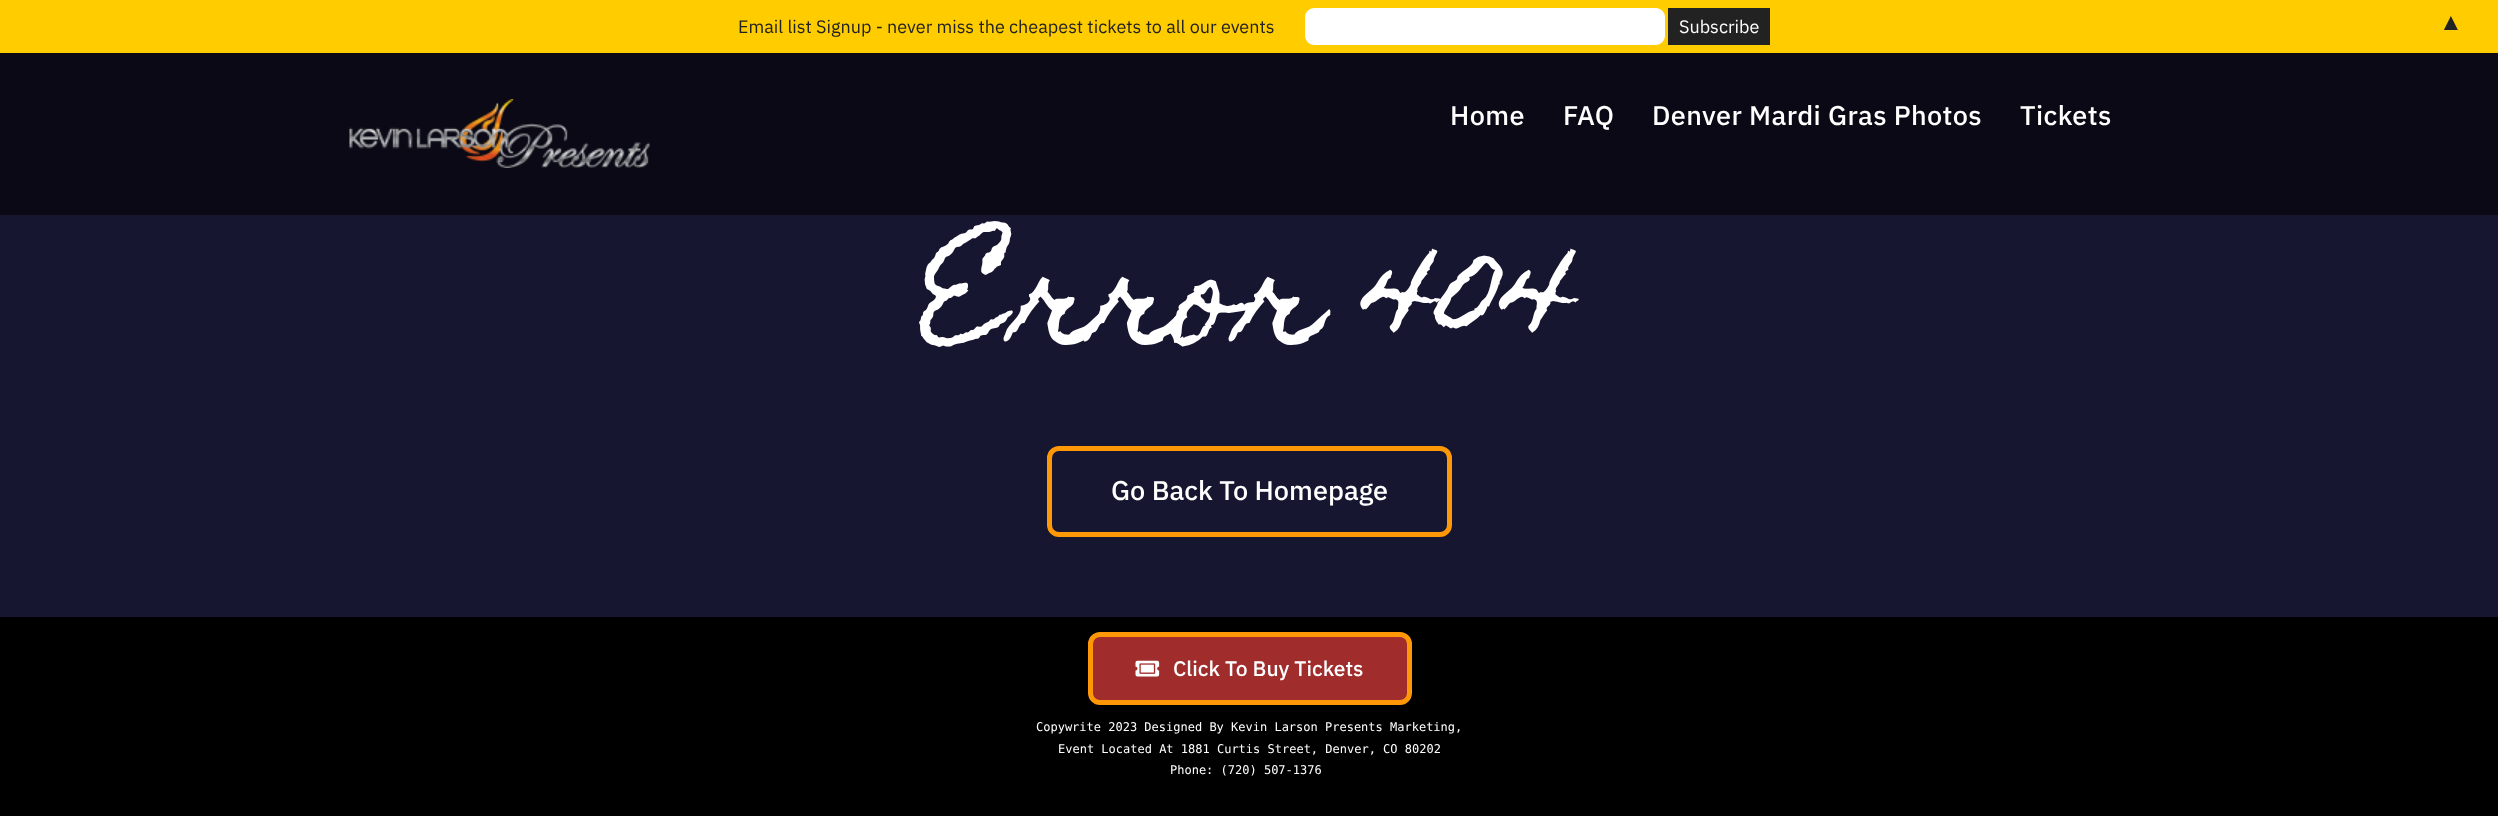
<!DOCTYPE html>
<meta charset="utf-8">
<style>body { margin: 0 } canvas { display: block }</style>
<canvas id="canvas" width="2498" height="816"></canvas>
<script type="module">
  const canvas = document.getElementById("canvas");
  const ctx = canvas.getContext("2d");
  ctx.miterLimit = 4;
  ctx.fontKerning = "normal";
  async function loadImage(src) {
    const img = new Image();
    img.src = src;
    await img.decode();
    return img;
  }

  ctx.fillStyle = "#171631";
  ctx.fillRect(0, 0, 2498, 816);
  ctx.fillStyle = "#ffcc00";
  ctx.fillRect(0, 0, 2498, 53);
  ctx.font = "18px IBM Plex Sans";
  ctx.fillStyle = "#222222";
  ctx.fillText("Email list Signup - never miss the cheapest tickets to all our events", 738, 33);
  ctx.fillStyle = "#ffffff";
  ctx.beginPath();
  ctx.roundRect(1306, 9, 358, 35, 8);
  ctx.fill();
  ctx.strokeStyle = "#ffffff";
  ctx.lineWidth = 2;
  ctx.stroke();
  ctx.fillStyle = "#222222";
  ctx.fillRect(1668, 8, 102, 37);
  ctx.fillStyle = "#ffffff";
  ctx.fillText("Subscribe", 1679, 33);
  ctx.font = "24px Liberation Sans";
  ctx.fillStyle = "#222222";
  ctx.fillText("▲", 2439, 30);
  ctx.fillStyle = "#0a0915";
  ctx.fillRect(0, 53, 2498, 162);
  ctx.drawImage(await loadImage("img1.png"), 349, 99, 301, 69);
  ctx.letterSpacing = "0.4px";
  ctx.font = "500 27px IBM Plex Sans";
  ctx.fillStyle = "#ffffff";
  ctx.fillText("Home", 1450, 125);
  ctx.fillText("FAQ", 1563, 125);
  ctx.fillText("Denver Mardi Gras Photos", 1652, 125);
  ctx.fillText("Tickets", 2020, 125);
  ctx.letterSpacing = "-4px";
  ctx.font = "129.5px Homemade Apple";
  ctx.fillText("Error 404", 923, 340);
  ctx.beginPath();
  ctx.roundRect(1049.5, 448.5, 400, 86, 9.5);
  ctx.strokeStyle = "#ff9806";
  ctx.lineWidth = 5;
  ctx.stroke();
  ctx.letterSpacing = "0px";
  ctx.font = "500 27px IBM Plex Sans";
  ctx.fillText("Go Back To Homepage", 1111, 500);
  ctx.fillStyle = "#000000";
  ctx.fillRect(0, 617, 2498, 199);
  ctx.fillStyle = "#a02c2c";
  ctx.beginPath();
  ctx.roundRect(1090.5, 634.5, 319, 68, 9.5);
  ctx.fill();
  ctx.stroke();
  ctx.drawImage(await loadImage("img2.png"), 1135, 660, 25, 17);
  ctx.font = "500 21px IBM Plex Sans";
  ctx.fillStyle = "#ffffff";
  ctx.fillText("Click To Buy Tickets", 1173, 676);
  ctx.font = "12px DejaVu Sans Mono";
  ctx.fillText("Copywrite 2023 Designed By Kevin Larson Presents Marketing,", 1036, 731);
  ctx.fillText("Event Located At 1881 Curtis Street, Denver, CO 80202", 1058, 753);
  ctx.fillText("Phone: (720) 507-1376", 1170, 774);
</script>
